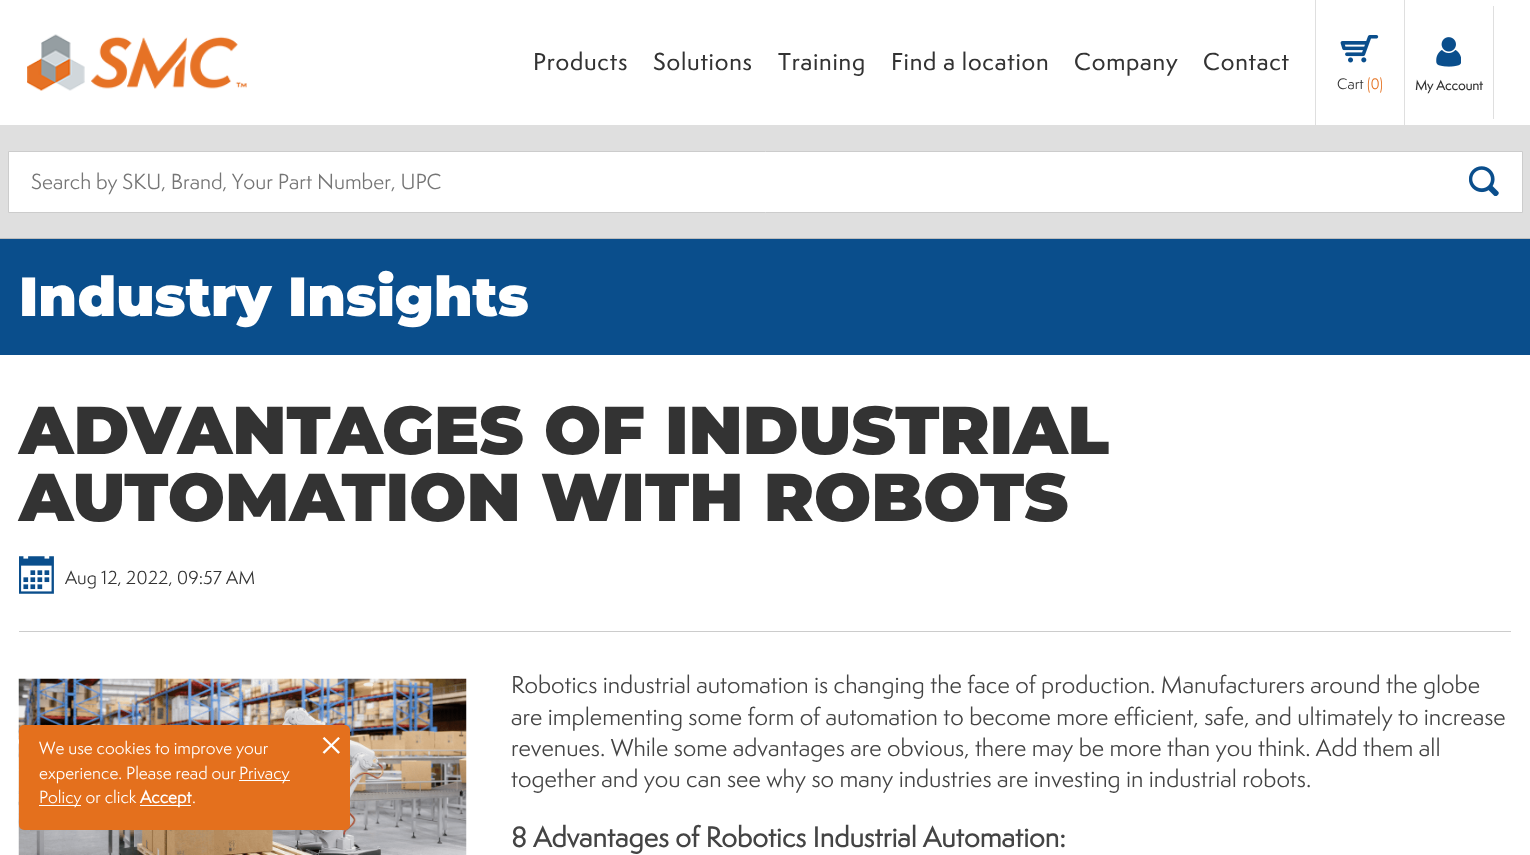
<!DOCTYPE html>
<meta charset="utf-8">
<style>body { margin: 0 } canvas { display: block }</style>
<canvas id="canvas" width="1530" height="855"></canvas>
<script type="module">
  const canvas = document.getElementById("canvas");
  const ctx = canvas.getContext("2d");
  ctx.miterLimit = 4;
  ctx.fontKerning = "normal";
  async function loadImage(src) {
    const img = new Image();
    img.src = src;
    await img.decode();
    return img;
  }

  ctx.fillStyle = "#ffffff";
  ctx.fillRect(0, 0, 1530, 855);
  ctx.drawImage(await loadImage("img1.png"), 27, 34, 220, 57);
  ctx.fillStyle = "#dfdfdf";
  ctx.fillRect(1315, 0, 1, 125);
  ctx.letterSpacing = "0.75px";
  ctx.font = "500 22.5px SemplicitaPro";
  ctx.fillStyle = "#333333";
  ctx.fillText("Products", 533, 70);
  ctx.fillText("Solutions", 653, 70);
  ctx.fillText("Training", 778, 70);
  ctx.fillText("Find a location", 891, 70);
  ctx.fillText("Company", 1074, 70);
  ctx.fillText("Contact", 1203, 70);
  ctx.fillStyle = "#dfdfdf";
  ctx.fillRect(1404, 0, 1, 125);
  ctx.drawImage(await loadImage("img2.png"), 1340, 35, 39, 28);
  ctx.letterSpacing = "0px";
  ctx.font = "14px SemplicitaPro";
  ctx.fillStyle = "#333333";
  ctx.fillText("Cart", 1337, 89);
  ctx.fillStyle = "#e4701e";
  ctx.fillText("(0)", 1367, 89);
  ctx.fillStyle = "#dfdfdf";
  ctx.fillRect(1493, 6, 1, 113);
  ctx.drawImage(await loadImage("img3.png"), 1436, 37, 25, 30);
  ctx.font = "bold 12.5px SemplicitaPro";
  ctx.fillStyle = "#333333";
  ctx.fillText("My Account", 1415, 90);
  ctx.fillStyle = "#dfdfdf";
  ctx.fillRect(0, 125, 1530, 113);
  ctx.fillStyle = "#ffffff";
  ctx.beginPath();
  ctx.rect(8.5, 151.5, 1514, 61);
  ctx.fill();
  ctx.strokeStyle = "#cccccc";
  ctx.stroke();
  ctx.font = "20px SemplicitaPro";
  ctx.fillStyle = "#757575";
  ctx.fillText("Search by SKU, Brand, Your Part Number, UPC", 31, 189);
  ctx.drawImage(await loadImage("img4.png"), 1469, 166, 30, 30);
  ctx.fillStyle = "#bdbdbd";
  ctx.fillRect(0, 238, 1530, 1);
  ctx.fillStyle = "#0a4e8c";
  ctx.fillRect(0, 239, 1530, 116);
  ctx.font = "900 55px Montserrat";
  ctx.fillStyle = "#ffffff";
  ctx.fillText("Industry Insights", 19, 316);
  ctx.font = "900 67.5px Montserrat";
  ctx.fillStyle = "#333333";
  ctx.fillText("ADVANTAGES OF INDUSTRIAL", 19, 454);
  ctx.fillText("AUTOMATION WITH ROBOTS", 19, 521);
  ctx.fillStyle = "#cccccc";
  ctx.fillRect(19, 631, 1492, 1);
  ctx.drawImage(await loadImage("img5.png"), 19, 556, 35, 38);
  ctx.font = "17.5px SemplicitaPro";
  ctx.fillStyle = "#333333";
  ctx.fillText("Aug 12, 2022, 09:57 AM", 65, 584);
  ctx.drawImage(await loadImage("img6.png"), 18, 678, 449, 177);
  ctx.font = "22.5px SemplicitaPro";
  ctx.fillStyle = "#444444";
  ctx.fillText("Robotics industrial automation is changing the face of production. Manufacturers around the globe", 511, 693);
  ctx.fillText("are implementing some form of automation to become more efficient, safe, and ultimately to increase", 511, 725);
  ctx.fillText("revenues. While some advantages are obvious, there may be more than you think. Add them all", 511, 756);
  ctx.fillText("together and you can see why so many industries are investing in industrial robots.", 511, 787);
  ctx.font = "bold 26.3px SemplicitaPro";
  ctx.fillText("8 Advantages of Robotics Industrial Automation:", 511, 847);
  ctx.fillStyle = "#e4701d";
  ctx.beginPath();
  ctx.roundRect(19, 725, 331, 105, 5);
  ctx.fill();
  ctx.font = "16.25px SemplicitaPro";
  ctx.fillStyle = "#ffffff";
  ctx.fillText("We use cookies to improve your", 39, 754);
  ctx.font = "35px SemplicitaPro";
  ctx.fillText("×", 320, 758);
  ctx.font = "16.25px SemplicitaPro";
  ctx.fillText("experience. Please read our", 39, 779);
  ctx.fillRect(239, 780, 51, 1);
  ctx.fillText("Privacy", 239, 779);
  ctx.fillRect(39, 805, 42, 1);
  ctx.fillText("Policy or click", 39, 803);
  ctx.fillRect(140, 805, 51, 1);
  ctx.font = "bold 16.25px SemplicitaPro";
  ctx.fillText("Accept", 140, 803);
  ctx.font = "16.25px SemplicitaPro";
  ctx.fillText(".", 192, 803);
</script>
